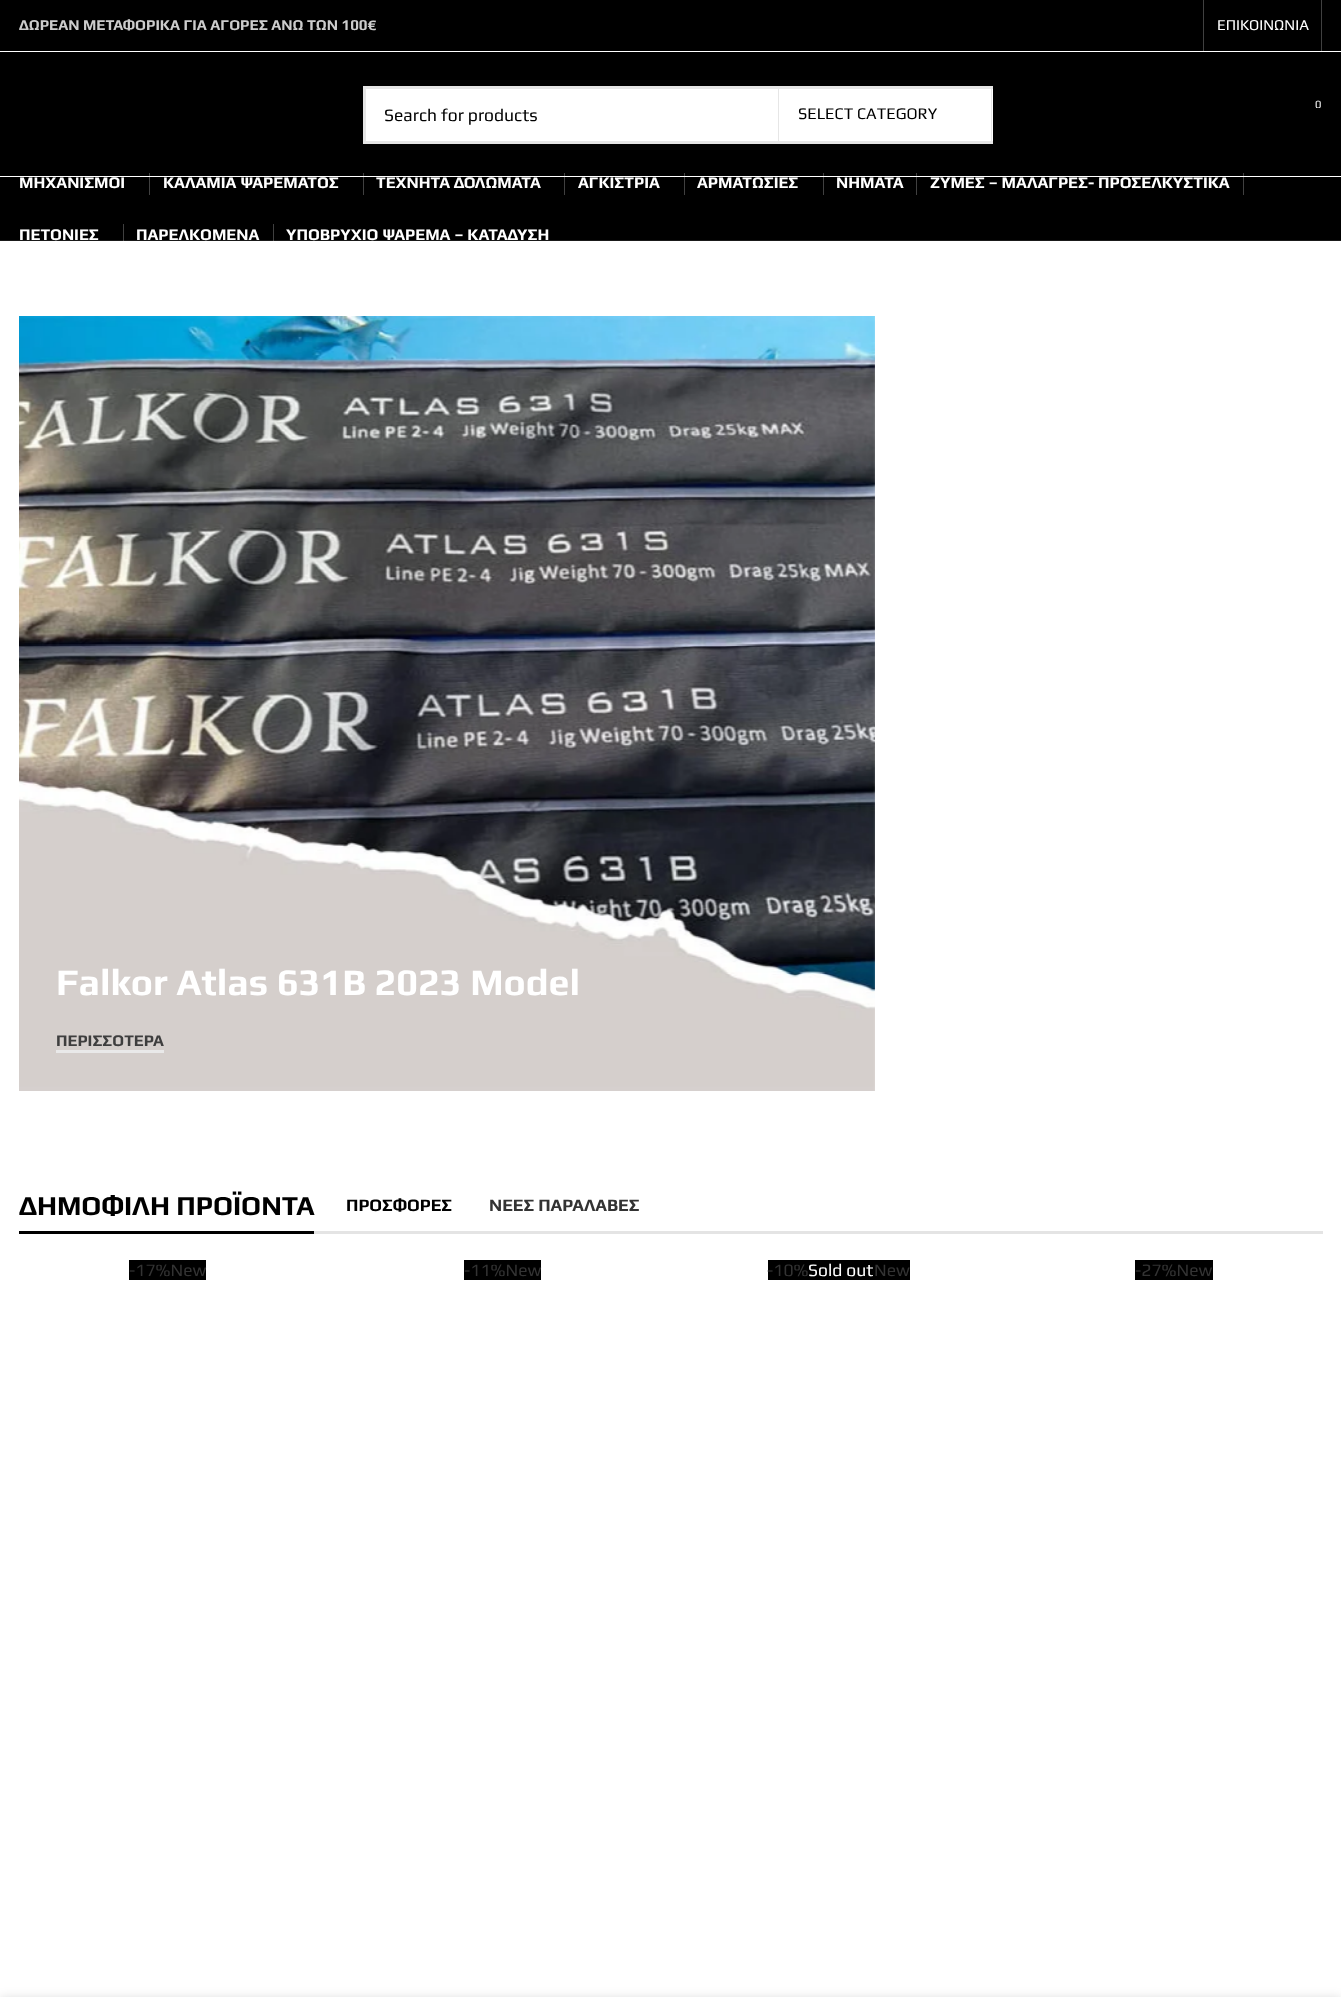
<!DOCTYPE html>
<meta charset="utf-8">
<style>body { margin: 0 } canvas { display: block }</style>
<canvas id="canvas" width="1341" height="1997"></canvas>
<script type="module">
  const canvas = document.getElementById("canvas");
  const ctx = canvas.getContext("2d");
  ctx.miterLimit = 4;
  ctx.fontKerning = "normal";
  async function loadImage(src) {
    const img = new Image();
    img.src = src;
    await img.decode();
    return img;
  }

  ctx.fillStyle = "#ffffff";
  ctx.fillRect(0, 0, 1341, 1997);
  ctx.fillStyle = "#000000";
  ctx.fillRect(0, 0, 1341, 240);
  ctx.fillStyle = "#ffffff";
  ctx.fillRect(0, 51, 1341, 1);
  ctx.font = "bold 15px Play";
  ctx.fillStyle = "#cccccc";
  ctx.fillText("ΔΩΡΕΑΝ ΜΕΤΑΦΟΡΙΚΑ ΓΙΑ ΑΓΟΡΕΣ ΑΝΩ ΤΩΝ 100€", 19, 30);
  ctx.fillStyle = "#404040";
  ctx.fillRect(1203, 0, 1, 51);
  ctx.font = "15px Play";
  ctx.fillStyle = "#ffffff";
  ctx.fillText("ΕΠΙΚΟΙΝΩΝΙΑ", 1217, 30);
  ctx.fillStyle = "#404040";
  ctx.fillRect(1321, 0, 1, 51);
  ctx.fillRect(1243, 173, 1, 22);
  ctx.fillRect(916, 173, 1, 22);
  ctx.fillRect(823, 173, 1, 22);
  ctx.fillRect(684, 173, 1, 22);
  ctx.fillRect(564, 173, 1, 22);
  ctx.fillRect(363, 173, 1, 22);
  ctx.fillRect(149, 173, 1, 22);
  ctx.fillStyle = "#ffffff";
  ctx.fillRect(0, 176, 1341, 1);
  ctx.font = "11px Play";
  ctx.fillText("0", 1315, 108);
  ctx.fillRect(366, 89, 627, 52);
  ctx.strokeStyle = "#e6e6e6";
  ctx.lineWidth = 3;
  ctx.strokeRect(364.5, 87.5, 684, 55);
  ctx.font = "17.5px Play";
  ctx.fillStyle = "#000000";
  ctx.fillText("Search for products", 384, 121);
  ctx.fillStyle = "#e6e6e6";
  ctx.fillRect(991, 89, 1, 52);
  ctx.fillRect(778, 89, 1, 52);
  ctx.font = "16.25px Play";
  ctx.fillStyle = "#000000";
  ctx.fillText("SELECT CATEGORY", 798, 119);
  ctx.fillRect(993, 86, 57, 58);
  ctx.fillStyle = "#404040";
  ctx.fillRect(273, 224, 1, 17);
  ctx.fillRect(123, 224, 1, 17);
  ctx.fillStyle = "#1a1a1a";
  ctx.fillRect(0, 240, 1341, 1);
  ctx.fillStyle = "#535353";
  ctx.fillRect(273, 240, 1, 1);
  ctx.fillRect(123, 240, 1, 1);
  ctx.font = "bold 16.25px Play";
  ctx.fillStyle = "#ffffff";
  ctx.fillText("ΜΗΧΑΝΙΣΜΟΙ", 19, 188);
  ctx.fillText("ΚΑΛΑΜΙΑ ΨΑΡΕΜΑΤΟΣ", 163, 188);
  ctx.fillText("ΤΕΧΝΗΤΑ ΔΟΛΩΜΑΤΑ", 376, 188);
  ctx.fillText("ΑΓΚΙΣΤΡΙΑ", 578, 188);
  ctx.fillText("ΑΡΜΑΤΩΣΙΕΣ", 697, 188);
  ctx.fillText("ΝΗΜΑΤΑ", 836, 188);
  ctx.fillText("ΖΥΜΕΣ – ΜΑΛΑΓΡΕΣ- ΠΡΟΣΕΛΚΥΣΤΙΚΑ", 930, 188);
  ctx.fillText("ΠΕΤΟΝΙΕΣ", 19, 240);
  ctx.fillText("ΠΑΡΕΛΚΟΜΕΝΑ", 136, 240);
  ctx.fillText("ΥΠΟΒΡΥΧΙΟ ΨΑΡΕΜΑ – ΚΑΤΑΔΥΣΗ", 286, 240);
  ctx.drawImage(await loadImage("img1.png"), 19, 316, 856, 775);
  ctx.font = "bold 37.5px Play";
  ctx.fillText("Falkor Atlas 631B 2023 Model", 56, 995);
  ctx.fillStyle = "#e9e9e9";
  ctx.fillRect(56, 1050, 108, 3);
  ctx.font = "bold 16.25px Play";
  ctx.fillStyle = "#3e3e3e";
  ctx.fillText("ΠΕΡΙΣΣΟΤΕΡΑ", 56, 1046);
  ctx.fillStyle = "#e4e4e4";
  ctx.fillRect(314, 1231, 1009, 3);
  ctx.fillStyle = "#000000";
  ctx.fillRect(19, 1231, 295, 3);
  ctx.font = "bold 27.5px Play";
  ctx.fillText("ΔΗΜΟΦΙΛΗ ΠΡΟΪΟΝΤΑ", 19, 1215);
  ctx.font = "bold 17.5px Play";
  ctx.fillText("ΠΡΟΣΦΟΡΕΣ", 346, 1211);
  ctx.fillStyle = "#333333";
  ctx.fillText("ΝΕΕΣ ΠΑΡΑΛΑΒΕΣ", 489, 1211);
  ctx.fillStyle = "#000000";
  ctx.fillRect(129, 1260, 77, 20);
  ctx.font = "17.5px Play";
  ctx.fillStyle = "#333333";
  ctx.fillText("-17%New", 129, 1276);
  ctx.fillStyle = "#000000";
  ctx.fillRect(464, 1260, 77, 20);
  ctx.fillStyle = "#333333";
  ctx.fillText("-11%New", 464, 1276);
  ctx.fillStyle = "#000000";
  ctx.fillRect(768, 1260, 142, 20);
  ctx.fillStyle = "#333333";
  ctx.fillText("-10%", 767, 1276);
  ctx.fillStyle = "#ffffff";
  ctx.fillText("Sold out", 808, 1276);
  ctx.fillStyle = "#333333";
  ctx.fillText("New", 874, 1276);
  ctx.fillStyle = "#000000";
  ctx.fillRect(1135, 1260, 78, 20);
  ctx.fillStyle = "#333333";
  ctx.fillText("-27%New", 1135, 1276);
  ctx.fillStyle = "rgba(0, 0, 0, 0.14)";
  ctx.filter = "blur(5.5px)";
  ctx.beginPath();
  ctx.rect(0, 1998, 1341, 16);
  ctx.fill();
  ctx.filter = "none";
</script>
